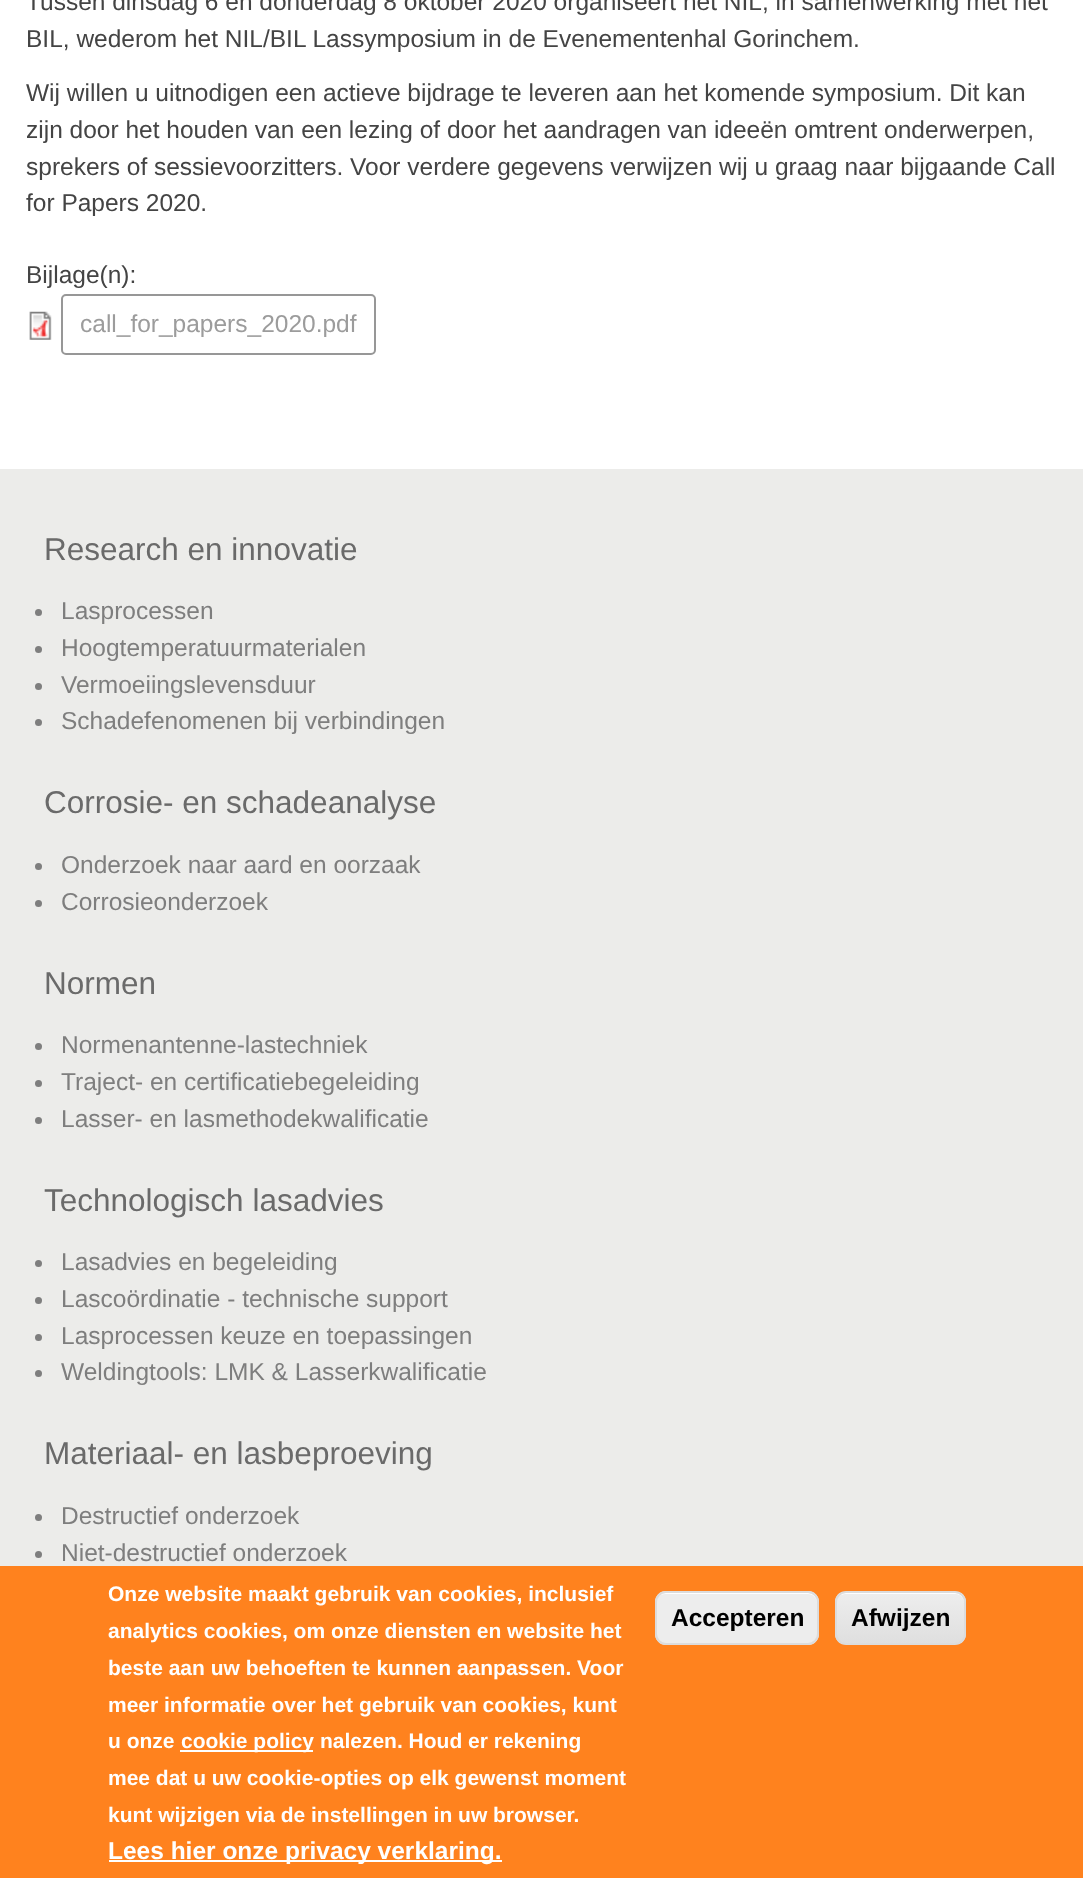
<!DOCTYPE html>
<meta charset="utf-8">
<style>body { margin: 0 } canvas { display: block }</style>
<canvas id="canvas" width="1083" height="1878"></canvas>
<script type="module">
  const canvas = document.getElementById("canvas");
  const ctx = canvas.getContext("2d");
  ctx.miterLimit = 4;
  ctx.fontKerning = "normal";
  async function loadImage(src) {
    const img = new Image();
    img.src = src;
    await img.decode();
    return img;
  }
  let gradient;

  ctx.fillStyle = "#ffffff";
  ctx.fillRect(0, 0, 1083, 1878);
  ctx.font = "24.5px Liberation Sans";
  ctx.fillStyle = "#444444";
  ctx.fillText("Tussen dinsdag 6 en donderdag 8 oktober 2020 organiseert het NIL, in samenwerking met het", 26, 10);
  ctx.fillText("BIL, wederom het NIL/BIL Lassymposium in de Evenementenhal Gorinchem.", 26, 47);
  ctx.fillText("Wij willen u uitnodigen een actieve bijdrage te leveren aan het komende symposium. Dit kan", 26, 101);
  ctx.fillText("zijn door het houden van een lezing of door het aandragen van ideeën omtrent onderwerpen,", 26, 138);
  ctx.fillText("sprekers of sessievoorzitters. Voor verdere gegevens verwijzen wij u graag naar bijgaande Call", 26, 175);
  ctx.fillText("for Papers 2020.", 26, 211);
  ctx.fillText("Bijlage(n):", 26, 283);
  ctx.drawImage(await loadImage("img1.png"), 29, 311, 23, 29);
  ctx.beginPath();
  ctx.roundRect(62, 295, 313, 59, 4);
  ctx.strokeStyle = "#979797";
  ctx.lineWidth = 2;
  ctx.stroke();
  ctx.fillStyle = "#9c9c9c";
  ctx.fillText("call_for_papers_2020.pdf", 80, 332);
  ctx.fillStyle = "#ececea";
  ctx.fillRect(0, 469, 1083, 1097);
  ctx.font = "31.5px Liberation Sans";
  ctx.fillStyle = "#6a6a6a";
  ctx.fillText("Research en innovatie", 44, 560);
  ctx.fillStyle = "#7e7e7e";
  ctx.beginPath();
  ctx.arc(38.5, 612.5, 3.5, 0, Math.PI * 2);
  ctx.fill();
  ctx.font = "24.5px Liberation Sans";
  ctx.fillText("Lasprocessen", 61, 619);
  ctx.beginPath();
  ctx.arc(38.5, 649.5, 3.5, 0, Math.PI * 2);
  ctx.fill();
  ctx.fillText("Hoogtemperatuurmaterialen", 61, 656);
  ctx.beginPath();
  ctx.arc(38.5, 686.5, 3.5, 0, Math.PI * 2);
  ctx.fill();
  ctx.fillText("Vermoeiingslevensduur", 61, 693);
  ctx.beginPath();
  ctx.arc(38.5, 722.5, 3.5, 0, Math.PI * 2);
  ctx.fill();
  ctx.fillText("Schadefenomenen bij verbindingen", 61, 729);
  ctx.font = "31.5px Liberation Sans";
  ctx.fillStyle = "#6a6a6a";
  ctx.fillText("Corrosie- en schadeanalyse", 44, 813);
  ctx.fillStyle = "#7e7e7e";
  ctx.beginPath();
  ctx.arc(38.5, 866.5, 3.5, 0, Math.PI * 2);
  ctx.fill();
  ctx.font = "24.5px Liberation Sans";
  ctx.fillText("Onderzoek naar aard en oorzaak", 61, 873);
  ctx.beginPath();
  ctx.arc(38.5, 903.5, 3.5, 0, Math.PI * 2);
  ctx.fill();
  ctx.fillText("Corrosieonderzoek", 61, 910);
  ctx.font = "31.5px Liberation Sans";
  ctx.fillStyle = "#6a6a6a";
  ctx.fillText("Normen", 44, 994);
  ctx.fillStyle = "#7e7e7e";
  ctx.beginPath();
  ctx.arc(38.5, 1046.5, 3.5, 0, Math.PI * 2);
  ctx.fill();
  ctx.font = "24.5px Liberation Sans";
  ctx.fillText("Normenantenne-lastechniek", 61, 1053);
  ctx.beginPath();
  ctx.arc(38.5, 1083.5, 3.5, 0, Math.PI * 2);
  ctx.fill();
  ctx.fillText("Traject- en certificatiebegeleiding", 61, 1090);
  ctx.beginPath();
  ctx.arc(38.5, 1120.5, 3.5, 0, Math.PI * 2);
  ctx.fill();
  ctx.fillText("Lasser- en lasmethodekwalificatie", 61, 1127);
  ctx.font = "31.5px Liberation Sans";
  ctx.fillStyle = "#6a6a6a";
  ctx.fillText("Technologisch lasadvies", 44, 1211);
  ctx.fillStyle = "#7e7e7e";
  ctx.beginPath();
  ctx.arc(38.5, 1263.5, 3.5, 0, Math.PI * 2);
  ctx.fill();
  ctx.font = "24.5px Liberation Sans";
  ctx.fillText("Lasadvies en begeleiding", 61, 1270);
  ctx.beginPath();
  ctx.arc(38.5, 1300.5, 3.5, 0, Math.PI * 2);
  ctx.fill();
  ctx.fillText("Lascoördinatie - technische support", 61, 1307);
  ctx.beginPath();
  ctx.arc(38.5, 1337.5, 3.5, 0, Math.PI * 2);
  ctx.fill();
  ctx.fillText("Lasprocessen keuze en toepassingen", 61, 1344);
  ctx.beginPath();
  ctx.arc(38.5, 1373.5, 3.5, 0, Math.PI * 2);
  ctx.fill();
  ctx.fillText("Weldingtools: LMK & Lasserkwalificatie", 61, 1380);
  ctx.font = "31.5px Liberation Sans";
  ctx.fillStyle = "#6a6a6a";
  ctx.fillText("Materiaal- en lasbeproeving", 44, 1464);
  ctx.fillStyle = "#7e7e7e";
  ctx.beginPath();
  ctx.arc(38.5, 1517.5, 3.5, 0, Math.PI * 2);
  ctx.fill();
  ctx.font = "24.5px Liberation Sans";
  ctx.fillText("Destructief onderzoek", 61, 1524);
  ctx.beginPath();
  ctx.arc(38.5, 1554.5, 3.5, 0, Math.PI * 2);
  ctx.fill();
  ctx.fillText("Niet-destructief onderzoek", 61, 1561);
  ctx.fillStyle = "#ff821e";
  ctx.fillRect(0, 1566, 1083, 312);
  ctx.font = "bold 21px Liberation Sans";
  ctx.fillStyle = "#ffffff";
  ctx.fillText("Onze website maakt gebruik van cookies, inclusief", 108, 1601);
  ctx.fillText("analytics cookies, om onze diensten en website het", 108, 1638);
  ctx.fillText("beste aan uw behoeften te kunnen aanpassen. Voor", 108, 1675);
  ctx.fillText("meer informatie over het gebruik van cookies, kunt", 108, 1712);
  ctx.fillText("u onze", 108, 1748);
  ctx.fillRect(180, 1750, 133, 2);
  ctx.fillText("cookie policy nalezen. Houd er rekening", 181, 1748);
  ctx.fillText("mee dat u uw cookie-opties op elk gewenst moment", 108, 1785);
  ctx.fillText("kunt wijzigen via de instellingen in uw browser.", 108, 1822);
  ctx.fillRect(109, 1860, 393, 2);
  ctx.font = "bold 24.5px Liberation Sans";
  ctx.fillText("Lees hier onze privacy verklaring.", 108, 1859);
  ctx.fillStyle = "#ededed";
  ctx.beginPath();
  ctx.roundRect(655, 1591, 164, 54, 11);
  ctx.fill();
  ctx.fillStyle = "#ffffff";
  ctx.beginPath();
  ctx.moveTo(665, 1594);
  ctx.lineTo(808, 1594);
  ctx.bezierCurveTo(813, 1594, 817, 1598, 817, 1603);
  ctx.lineTo(817, 1602);
  ctx.bezierCurveTo(817, 1597, 813, 1593, 808, 1593);
  ctx.lineTo(665, 1593);
  ctx.bezierCurveTo(660, 1593, 656, 1597, 656, 1602);
  ctx.lineTo(656, 1603);
  ctx.bezierCurveTo(656, 1598, 660, 1594, 665, 1594);
  ctx.closePath();
  ctx.fill();
  ctx.beginPath();
  ctx.roundRect(656, 1592, 162, 52, 10);
  ctx.strokeStyle = "#dcdcdc";
  ctx.stroke();
  ctx.fillStyle = "#000000";
  ctx.fillText("Accepteren", 671, 1626);
  ctx.save();
  ctx.beginPath();
  ctx.roundRect(835, 1591, 131, 54, 11);
  ctx.clip();
  gradient = ctx.createLinearGradient(900, 1593, 900, 1643);
  gradient.addColorStop(0.05, "#ededed");
  gradient.addColorStop(1, "#dfdfdf");
  ctx.fillStyle = gradient;
  ctx.fillRect(835, 1593, 131, 50);
  ctx.restore();
  ctx.fillStyle = "#ffffff";
  ctx.beginPath();
  ctx.moveTo(845, 1594);
  ctx.lineTo(956, 1594);
  ctx.bezierCurveTo(960, 1594, 964, 1598, 964, 1603);
  ctx.lineTo(964, 1602);
  ctx.bezierCurveTo(964, 1597, 960, 1593, 955, 1593);
  ctx.lineTo(846, 1593);
  ctx.bezierCurveTo(843, 1593, 841, 1594, 839, 1596);
  ctx.bezierCurveTo(841, 1595, 843, 1594, 845, 1594);
  ctx.closePath();
  ctx.fill();
  ctx.beginPath();
  ctx.roundRect(836, 1592, 129, 52, 10);
  ctx.stroke();
  ctx.fillStyle = "#000000";
  ctx.fillText("Afwijzen", 851, 1626);
</script>
